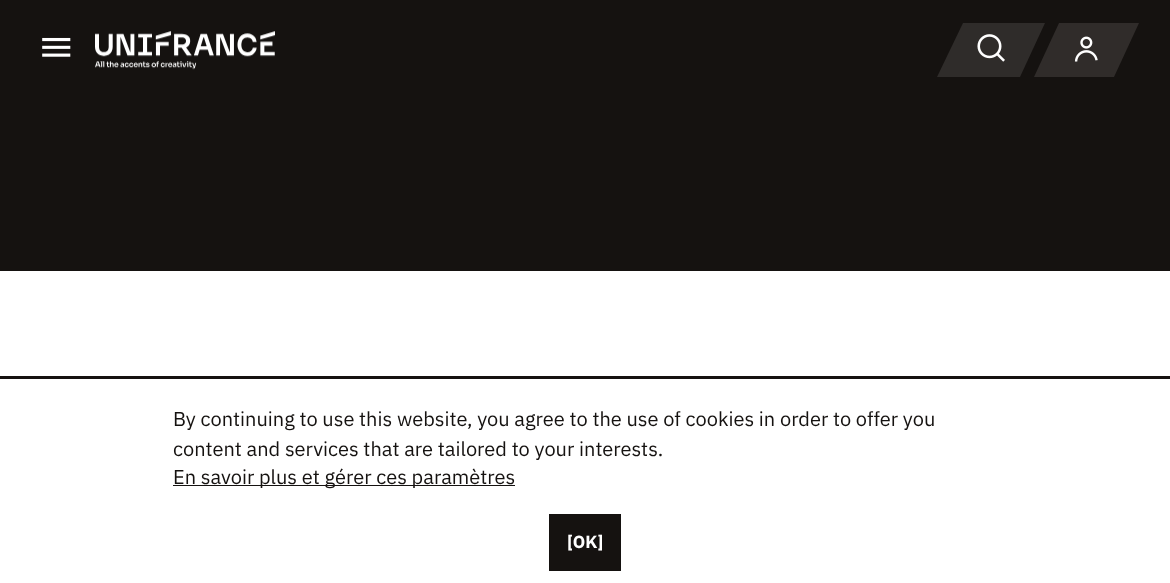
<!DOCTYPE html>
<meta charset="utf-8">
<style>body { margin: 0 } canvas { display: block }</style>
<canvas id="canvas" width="1170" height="583"></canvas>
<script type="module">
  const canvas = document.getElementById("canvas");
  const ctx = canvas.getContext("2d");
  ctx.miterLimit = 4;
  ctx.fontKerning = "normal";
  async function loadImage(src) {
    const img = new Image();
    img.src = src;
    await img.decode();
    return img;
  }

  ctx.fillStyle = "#151210";
  ctx.fillRect(0, 0, 1170, 583);
  ctx.drawImage(await loadImage("img1.png"), 42, 37, 29, 20);
  ctx.drawImage(await loadImage("img2.png"), 95, 31, 180, 39);
  ctx.fillStyle = "#302c2a";
  ctx.beginPath();
  ctx.moveTo(1059, 23);
  ctx.lineTo(1139, 23);
  ctx.lineTo(1114, 77);
  ctx.lineTo(1034, 77);
  ctx.closePath();
  ctx.fill();
  ctx.fillStyle = "#2f2c2a";
  ctx.beginPath();
  ctx.moveTo(963, 23);
  ctx.lineTo(1045, 23);
  ctx.lineTo(1020, 77);
  ctx.lineTo(937, 77);
  ctx.closePath();
  ctx.fill();
  ctx.drawImage(await loadImage("img3.png"), 977, 34, 28, 28);
  ctx.drawImage(await loadImage("img4.png"), 1074, 36, 24, 26);
  ctx.fillStyle = "#ffffff";
  ctx.fillRect(0, 271, 1170, 105);
  ctx.fillRect(0, 379, 1170, 204);
  ctx.font = "20px IBM Plex Sans";
  ctx.fillStyle = "#151210";
  ctx.fillText("By continuing to use this website, you agree to the use of cookies in order to offer you", 173, 426);
  ctx.fillText("content and services that are tailored to your interests.", 173, 456);
  ctx.fillRect(173, 485, 342, 1);
  ctx.fillText("En savoir plus et gérer ces paramètres", 173, 484);
  ctx.fillRect(549, 514, 72, 57);
  ctx.font = "bold 17.5px IBM Plex Sans";
  ctx.fillStyle = "#ffffff";
  ctx.fillText("[OK]", 567, 548);
</script>
